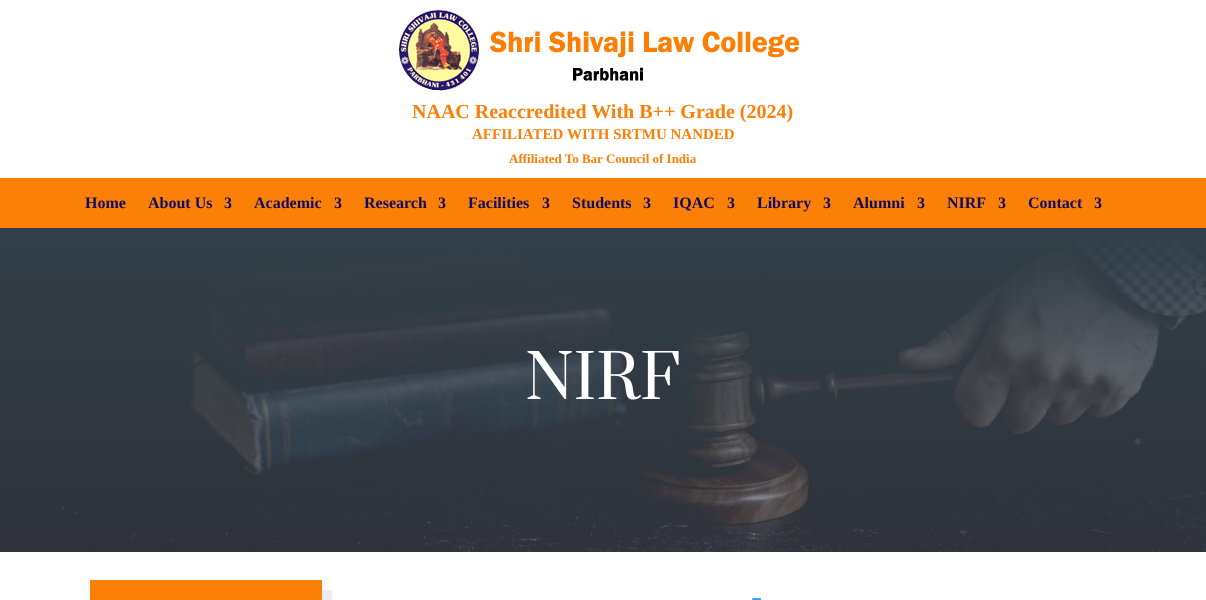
<!DOCTYPE html>
<meta charset="utf-8">
<style>body { margin: 0 } canvas { display: block }</style>
<canvas id="canvas" width="1206" height="600"></canvas>
<script type="module">
  const canvas = document.getElementById("canvas");
  const ctx = canvas.getContext("2d");
  ctx.miterLimit = 4;
  ctx.fontKerning = "normal";
  async function loadImage(src) {
    const img = new Image();
    img.src = src;
    await img.decode();
    return img;
  }

  ctx.fillStyle = "#ffffff";
  ctx.fillRect(0, 0, 1206, 600);
  ctx.drawImage(await loadImage("img1.png"), 398, 10, 402, 81);
  ctx.font = "bold 20px Liberation Serif";
  ctx.fillStyle = "#fc7f06";
  ctx.fillText("NAAC Reaccredited With B++ Grade (2024)", 412, 118);
  ctx.font = "bold 15px Liberation Serif";
  ctx.fillText("AFFILIATED WITH SRTMU NANDED", 472, 139);
  ctx.font = "bold 13px Liberation Serif";
  ctx.fillText("Affiliated To Bar Council of India", 509, 163);
  ctx.fillRect(0, 178, 1206, 50);
  ctx.font = "bold 16px Liberation Serif";
  ctx.fillStyle = "#100a63";
  ctx.fillText("Home", 85, 208);
  ctx.fillText("About Us", 148, 208);
  ctx.fillText("3", 224, 208);
  ctx.fillText("Academic", 254, 208);
  ctx.fillText("3", 334, 208);
  ctx.fillText("Research", 364, 208);
  ctx.fillText("3", 438, 208);
  ctx.fillText("Facilities", 468, 208);
  ctx.fillText("3", 542, 208);
  ctx.fillText("Students", 572, 208);
  ctx.fillText("3", 643, 208);
  ctx.fillText("IQAC", 673, 208);
  ctx.fillText("3", 727, 208);
  ctx.fillText("Library", 757, 208);
  ctx.fillText("3", 823, 208);
  ctx.fillText("Alumni", 853, 208);
  ctx.fillText("3", 917, 208);
  ctx.fillText("NIRF", 947, 208);
  ctx.fillText("3", 998, 208);
  ctx.fillText("Contact", 1028, 208);
  ctx.fillText("3", 1094, 208);
  ctx.drawImage(await loadImage("img2.png"), 0, 228, 1206, 324);
  ctx.font = "60px Prata";
  ctx.fillStyle = "#ffffff";
  ctx.fillText("NIRF", 525, 399);
  ctx.fillStyle = "#ebebeb";
  ctx.beginPath();
  ctx.moveTo(100, 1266);
  ctx.lineTo(100, 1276);
  ctx.lineTo(332, 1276);
  ctx.lineTo(332, 590);
  ctx.lineTo(322, 590);
  ctx.lineTo(322, 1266);
  ctx.closePath();
  ctx.fill();
  ctx.fillStyle = "#fc7f06";
  ctx.fillRect(90, 580, 232, 20);
  ctx.font = "bold 17px Roboto";
  ctx.fillStyle = "#2ea3f2";
  ctx.fillText("–", 751, 605);
</script>
